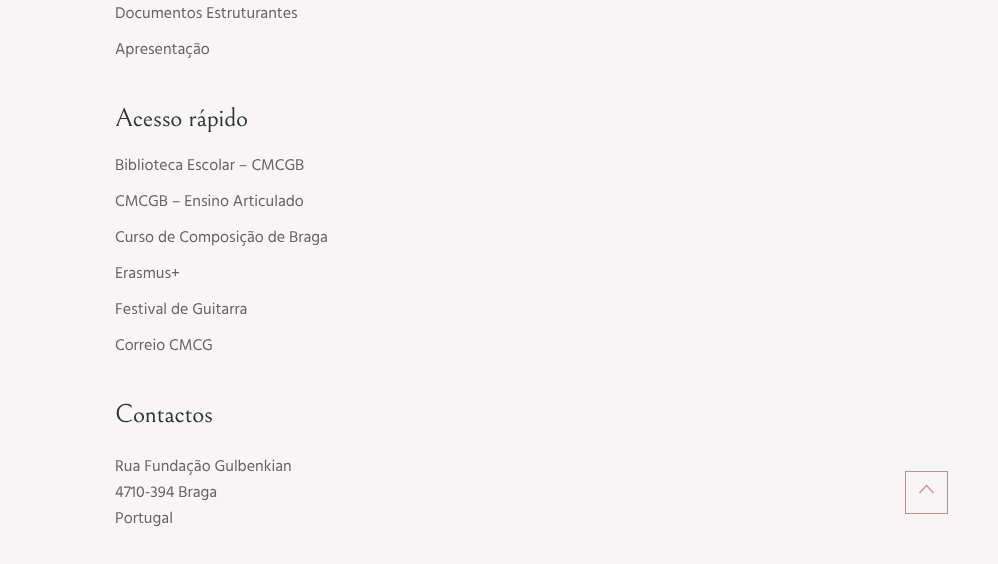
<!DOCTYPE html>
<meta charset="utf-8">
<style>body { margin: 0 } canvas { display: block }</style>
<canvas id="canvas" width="998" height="564"></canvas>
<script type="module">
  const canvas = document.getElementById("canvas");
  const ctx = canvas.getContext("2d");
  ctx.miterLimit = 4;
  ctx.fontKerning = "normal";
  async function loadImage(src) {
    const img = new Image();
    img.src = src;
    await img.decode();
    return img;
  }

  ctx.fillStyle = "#f7f5f5";
  ctx.fillRect(0, 0, 998, 564);
  ctx.font = "16px Hind";
  ctx.fillStyle = "#696363";
  ctx.fillText("Documentos Estruturantes", 115, 18);
  ctx.fillText("Apresentação", 115, 54);
  ctx.letterSpacing = "-0.25px";
  ctx.font = "26px Bellefair";
  ctx.fillStyle = "#333333";
  ctx.fillText("Acesso rápido", 115, 126);
  ctx.letterSpacing = "0px";
  ctx.font = "16px Hind";
  ctx.fillStyle = "#696363";
  ctx.fillText("Biblioteca Escolar – CMCGB", 115, 170);
  ctx.fillText("CMCGB – Ensino Articulado", 115, 206);
  ctx.fillText("Curso de Composição de Braga", 115, 242);
  ctx.fillText("Erasmus+", 115, 278);
  ctx.fillText("Festival de Guitarra", 115, 314);
  ctx.fillText("Correio CMCG", 115, 350);
  ctx.letterSpacing = "-0.25px";
  ctx.font = "26px Bellefair";
  ctx.fillStyle = "#333333";
  ctx.fillText("Contactos", 115, 422);
  ctx.letterSpacing = "0px";
  ctx.font = "16px Hind";
  ctx.fillStyle = "#696363";
  ctx.fillText("Rua Fundação Gulbenkian", 115, 471);
  ctx.fillText("4710-394 Braga", 115, 497);
  ctx.fillText("Portugal", 115, 523);
  ctx.strokeStyle = "#c88f86";
  ctx.strokeRect(905.5, 471.5, 42, 42);
  ctx.drawImage(await loadImage("img1.png"), 919, 484, 15, 10);
</script>
